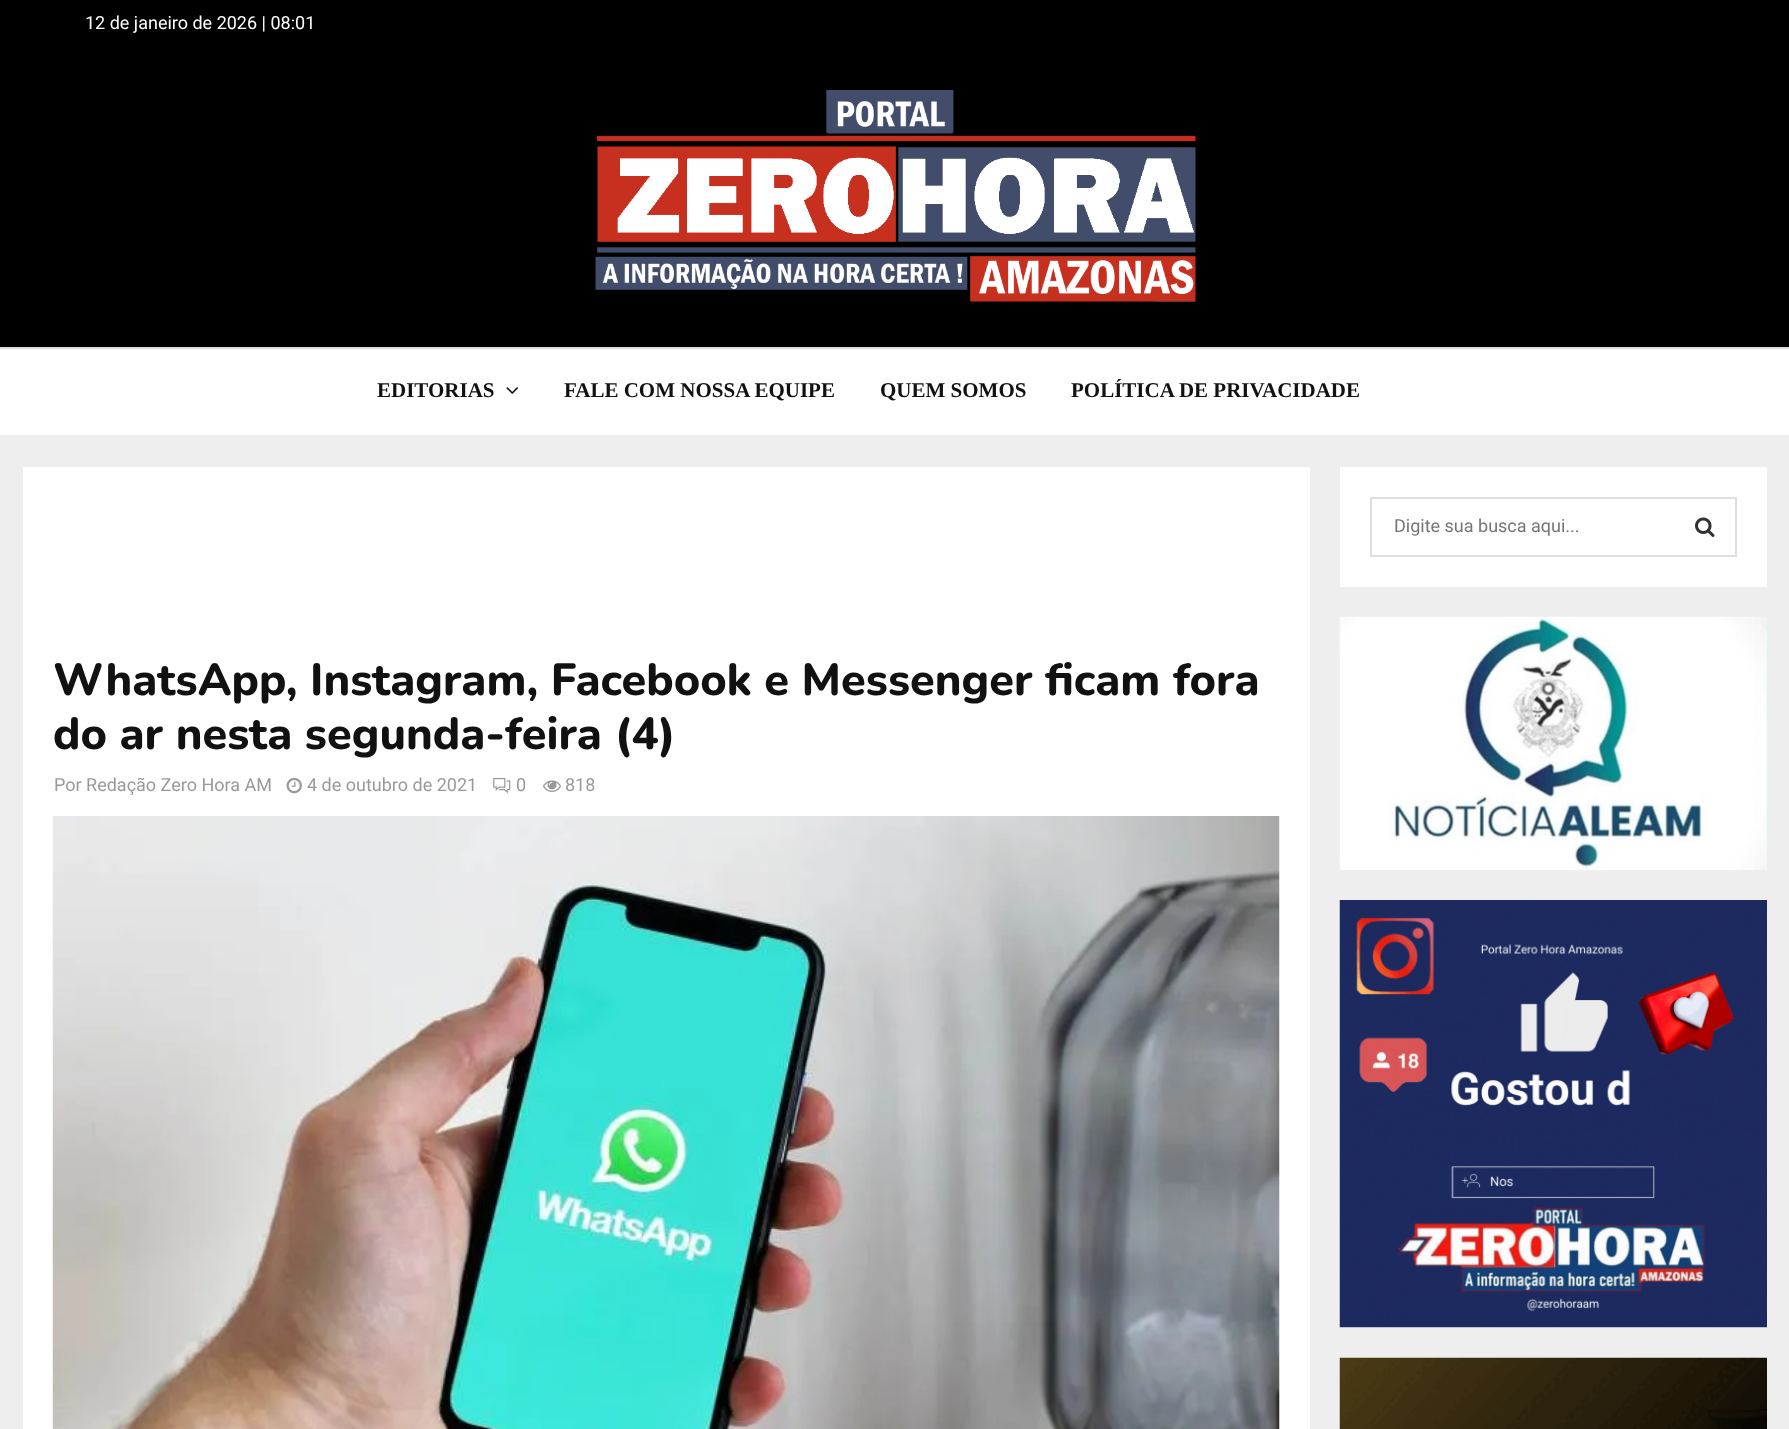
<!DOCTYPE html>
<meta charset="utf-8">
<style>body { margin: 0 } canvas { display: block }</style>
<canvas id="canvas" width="1789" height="1429"></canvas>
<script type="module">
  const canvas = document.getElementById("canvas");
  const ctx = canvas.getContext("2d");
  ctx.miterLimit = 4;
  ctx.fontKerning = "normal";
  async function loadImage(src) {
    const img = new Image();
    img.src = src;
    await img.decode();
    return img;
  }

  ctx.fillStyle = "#eeeeee";
  ctx.fillRect(0, 0, 1789, 1429);
  ctx.fillStyle = "#000000";
  ctx.fillRect(0, 0, 1789, 347);
  ctx.font = "18px Roboto";
  ctx.fillStyle = "#ffffff";
  ctx.fillText("12 de janeiro de 2026 | 08:01", 85, 29);
  ctx.drawImage(await loadImage("img1.png"), 595, 90, 601, 212);
  ctx.fillRect(0, 349, 1789, 86);
  ctx.fillStyle = "#dedede";
  ctx.fillRect(0, 347, 1789, 2);
  ctx.font = "bold 21px Liberation Serif";
  ctx.fillStyle = "#111111";
  ctx.fillText("EDITORIAS", 377, 397);
  ctx.drawImage(await loadImage("img2.png"), 506, 387, 12, 7);
  ctx.fillText("FALE COM NOSSA EQUIPE", 564, 397);
  ctx.fillText("QUEM SOMOS", 880, 397);
  ctx.fillText("POLÍTICA DE PRIVACIDADE", 1071, 397);
  ctx.fillStyle = "#ffffff";
  ctx.fillRect(1340, 467, 427, 120);
  ctx.strokeStyle = "#dedede";
  ctx.lineWidth = 2;
  ctx.strokeRect(1371, 498, 365, 58);
  ctx.font = "18px Roboto";
  ctx.fillStyle = "#757575";
  ctx.fillText("Digite sua busca aqui...", 1394, 532);
  ctx.drawImage(await loadImage("img3.png"), 1695, 517, 20, 20);
  ctx.drawImage(await loadImage("img4.png"), 1339, 616, 428, 254);
  ctx.fillStyle = "#f5f5f5";
  ctx.fillRect(1340, 1327, 427, 1);
  ctx.drawImage(await loadImage("img5.png"), 1339, 900, 428, 428);
  ctx.drawImage(await loadImage("img6.png"), 1339, 1357, 428, 72);
  ctx.fillStyle = "#ffffff";
  ctx.fillRect(23, 467, 1287, 962);
  ctx.font = "800 45px Nunito";
  ctx.fillStyle = "#111111";
  ctx.fillText("WhatsApp, Instagram, Facebook e Messenger ficam fora", 53, 695);
  ctx.fillText("do ar nesta segunda-feira (4)", 53, 749);
  ctx.font = "18px Roboto";
  ctx.fillStyle = "#999999";
  ctx.fillText("Por Redação Zero Hora AM", 54, 791);
  ctx.drawImage(await loadImage("img7.png"), 286, 777, 16, 17);
  ctx.fillText("4 de outubro de 2021", 307, 791);
  ctx.drawImage(await loadImage("img8.png"), 493, 778, 18, 16);
  ctx.fillText("0", 516, 791);
  ctx.drawImage(await loadImage("img9.png"), 543, 780, 18, 12);
  ctx.fillText("818", 565, 791);
  ctx.drawImage(await loadImage("img10.png"), 52, 816, 1228, 613);
</script>
